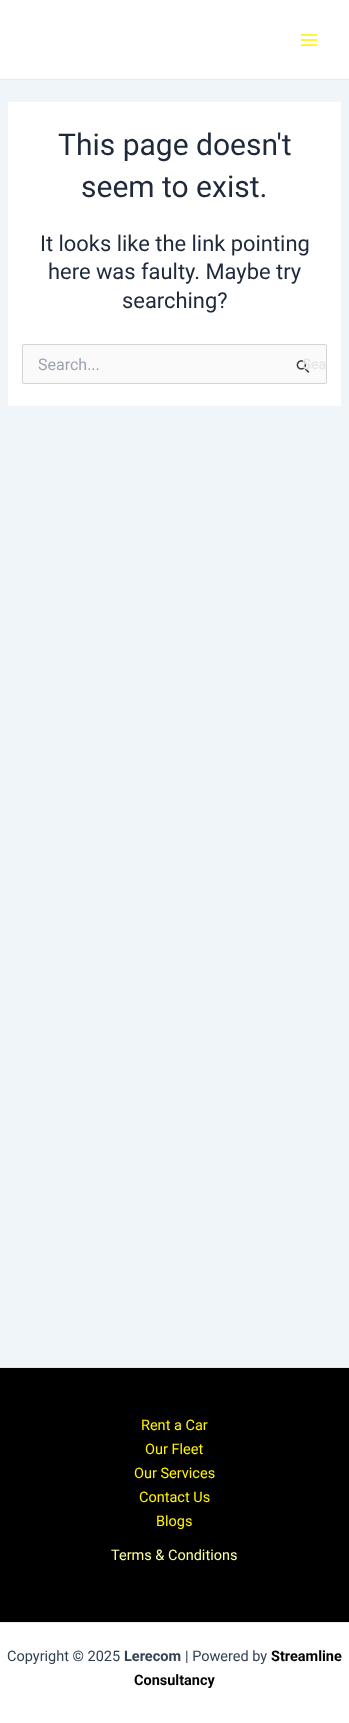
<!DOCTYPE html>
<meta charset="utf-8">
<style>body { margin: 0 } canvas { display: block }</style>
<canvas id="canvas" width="349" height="1723"></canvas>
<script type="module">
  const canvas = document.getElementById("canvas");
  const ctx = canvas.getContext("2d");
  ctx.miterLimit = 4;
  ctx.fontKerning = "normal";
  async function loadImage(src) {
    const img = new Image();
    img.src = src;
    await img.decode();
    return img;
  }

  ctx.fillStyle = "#f0f5fa";
  ctx.fillRect(0, 0, 349, 1723);
  ctx.fillStyle = "#ffffff";
  ctx.fillRect(0, 0, 349, 79);
  ctx.fillStyle = "#eaeaea";
  ctx.fillRect(0, 79, 349, 1);
  ctx.drawImage(await loadImage("img1.png"), 300, 34, 18, 12);
  ctx.fillStyle = "#ffffff";
  ctx.fillRect(8, 102, 333, 304);
  ctx.font = "30px Roboto";
  ctx.fillStyle = "#1e293b";
  ctx.fillText("This page doesn't", 58, 155);
  ctx.fillText("seem to exist.", 81, 197);
  ctx.font = "21.9px Roboto";
  ctx.fillText("It looks like the link pointing", 40, 251);
  ctx.fillText("here was faulty. Maybe try", 48, 279);
  ctx.fillText("searching?", 122, 308);
  ctx.fillStyle = "#fafafa";
  ctx.beginPath();
  ctx.roundRect(22.5, 344.5, 304, 39, 1.5);
  ctx.fill();
  ctx.strokeStyle = "#d1d5db";
  ctx.stroke();
  ctx.font = "16px Roboto";
  ctx.fillStyle = "#9ca3af";
  ctx.fillText("Search...", 38, 370);
  ctx.drawImage(await loadImage("img2.png"), 296, 360, 14, 13);
  ctx.font = "500 14.5px Roboto";
  ctx.fillStyle = "#e7e7e7";
  ctx.fillText("Sea", 302, 369);
  ctx.fillStyle = "#000000";
  ctx.fillRect(0, 1368, 349, 254);
  ctx.fillStyle = "#e6e6e6";
  ctx.fillRect(0, 1367, 349, 1);
  ctx.font = "14.5px Roboto";
  ctx.fillStyle = "#fff201";
  ctx.fillText("Rent a Car", 141, 1430);
  ctx.fillText("Our Fleet", 145, 1454);
  ctx.fillText("Our Services", 134, 1478);
  ctx.fillText("Contact Us", 139, 1502);
  ctx.fillText("Blogs", 156, 1526);
  ctx.fillStyle = "#ffff99";
  ctx.fillText("Terms & Conditions", 111, 1560);
  ctx.fillStyle = "#ffffff";
  ctx.fillRect(0, 1623, 349, 100);
  ctx.fillStyle = "#eaeaea";
  ctx.fillRect(0, 1622, 349, 1);
  ctx.fillStyle = "#334155";
  ctx.fillText("Copyright © 2025", 7, 1661);
  ctx.font = "bold 14.5px Roboto";
  ctx.fillText("Lerecom", 124, 1661);
  ctx.font = "14.5px Roboto";
  ctx.fillText("| Powered by", 185, 1661);
  ctx.font = "bold 14.5px Roboto";
  ctx.fillStyle = "#000000";
  ctx.fillText("Streamline", 271, 1661);
  ctx.fillText("Consultancy", 134, 1685);
</script>
